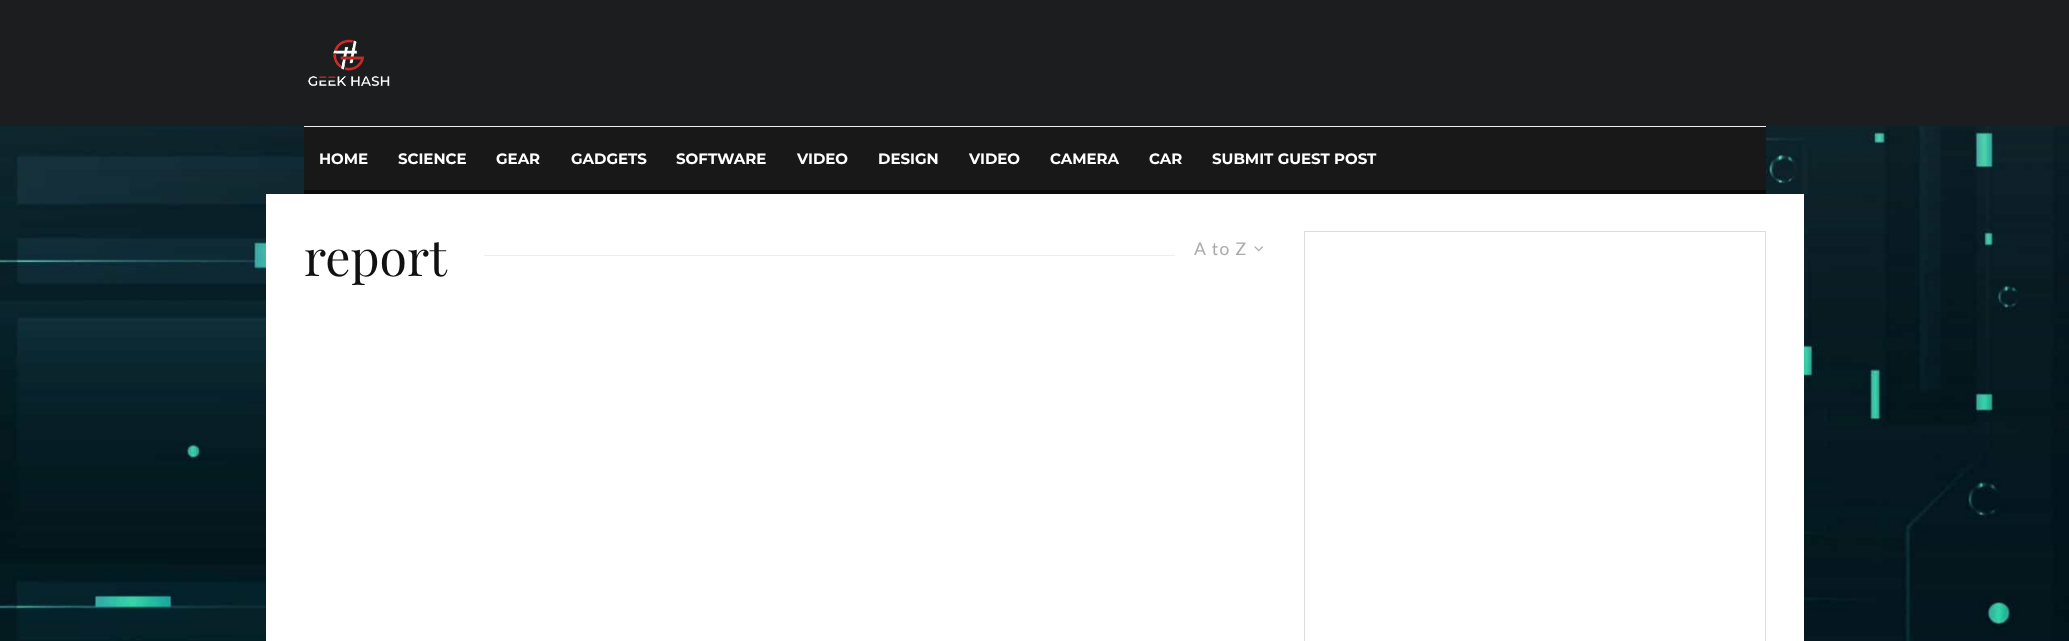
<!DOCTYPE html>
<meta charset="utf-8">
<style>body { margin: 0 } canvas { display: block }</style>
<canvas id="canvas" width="2069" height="641"></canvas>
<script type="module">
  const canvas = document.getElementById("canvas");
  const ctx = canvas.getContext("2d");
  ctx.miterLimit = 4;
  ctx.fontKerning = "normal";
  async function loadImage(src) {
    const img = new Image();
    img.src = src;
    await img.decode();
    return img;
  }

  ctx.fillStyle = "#ffffff";
  ctx.fillRect(0, 0, 2069, 641);
  ctx.drawImage(await loadImage("img1.png"), 0, 126, 2069, 515);
  ctx.fillStyle = "#1c1d1e";
  ctx.fillRect(0, 0, 2069, 126);
  ctx.drawImage(await loadImage("img2.png"), 307, 39, 83, 48);
  ctx.fillStyle = "#181818";
  ctx.fillRect(304, 127, 1462, 63);
  ctx.fillStyle = "#eeeeee";
  ctx.fillRect(304, 126, 1462, 1);
  ctx.fillStyle = "#0a0a0a";
  ctx.fillRect(304, 190, 1462, 4);
  ctx.font = "bold 15px Montserrat";
  ctx.fillStyle = "#ffffff";
  ctx.fillText("HOME", 319, 164);
  ctx.fillText("SCIENCE", 398, 164);
  ctx.fillText("GEAR", 496, 164);
  ctx.fillText("GADGETS", 571, 164);
  ctx.fillText("SOFTWARE", 676, 164);
  ctx.fillText("VIDEO", 797, 164);
  ctx.fillText("DESIGN", 878, 164);
  ctx.fillText("VIDEO", 969, 164);
  ctx.fillText("CAMERA", 1050, 164);
  ctx.fillText("CAR", 1149, 164);
  ctx.fillText("SUBMIT GUEST POST", 1212, 164);
  ctx.fillRect(266, 194, 1538, 447);
  ctx.font = "50px Playfair Display";
  ctx.fillStyle = "#111111";
  ctx.fillText("report", 304, 276);
  ctx.fillStyle = "#eeeeee";
  ctx.fillRect(484, 255, 691, 1);
  ctx.letterSpacing = "1.25px";
  ctx.font = "17.5px Lato";
  ctx.fillStyle = "#aaaaaa";
  ctx.fillText("A to Z", 1194, 255);
  ctx.drawImage(await loadImage("img3.png"), 1254, 246, 9, 6);
  ctx.strokeStyle = "#dddddd";
  ctx.strokeRect(1304.5, 231.5, 461, 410);
</script>
